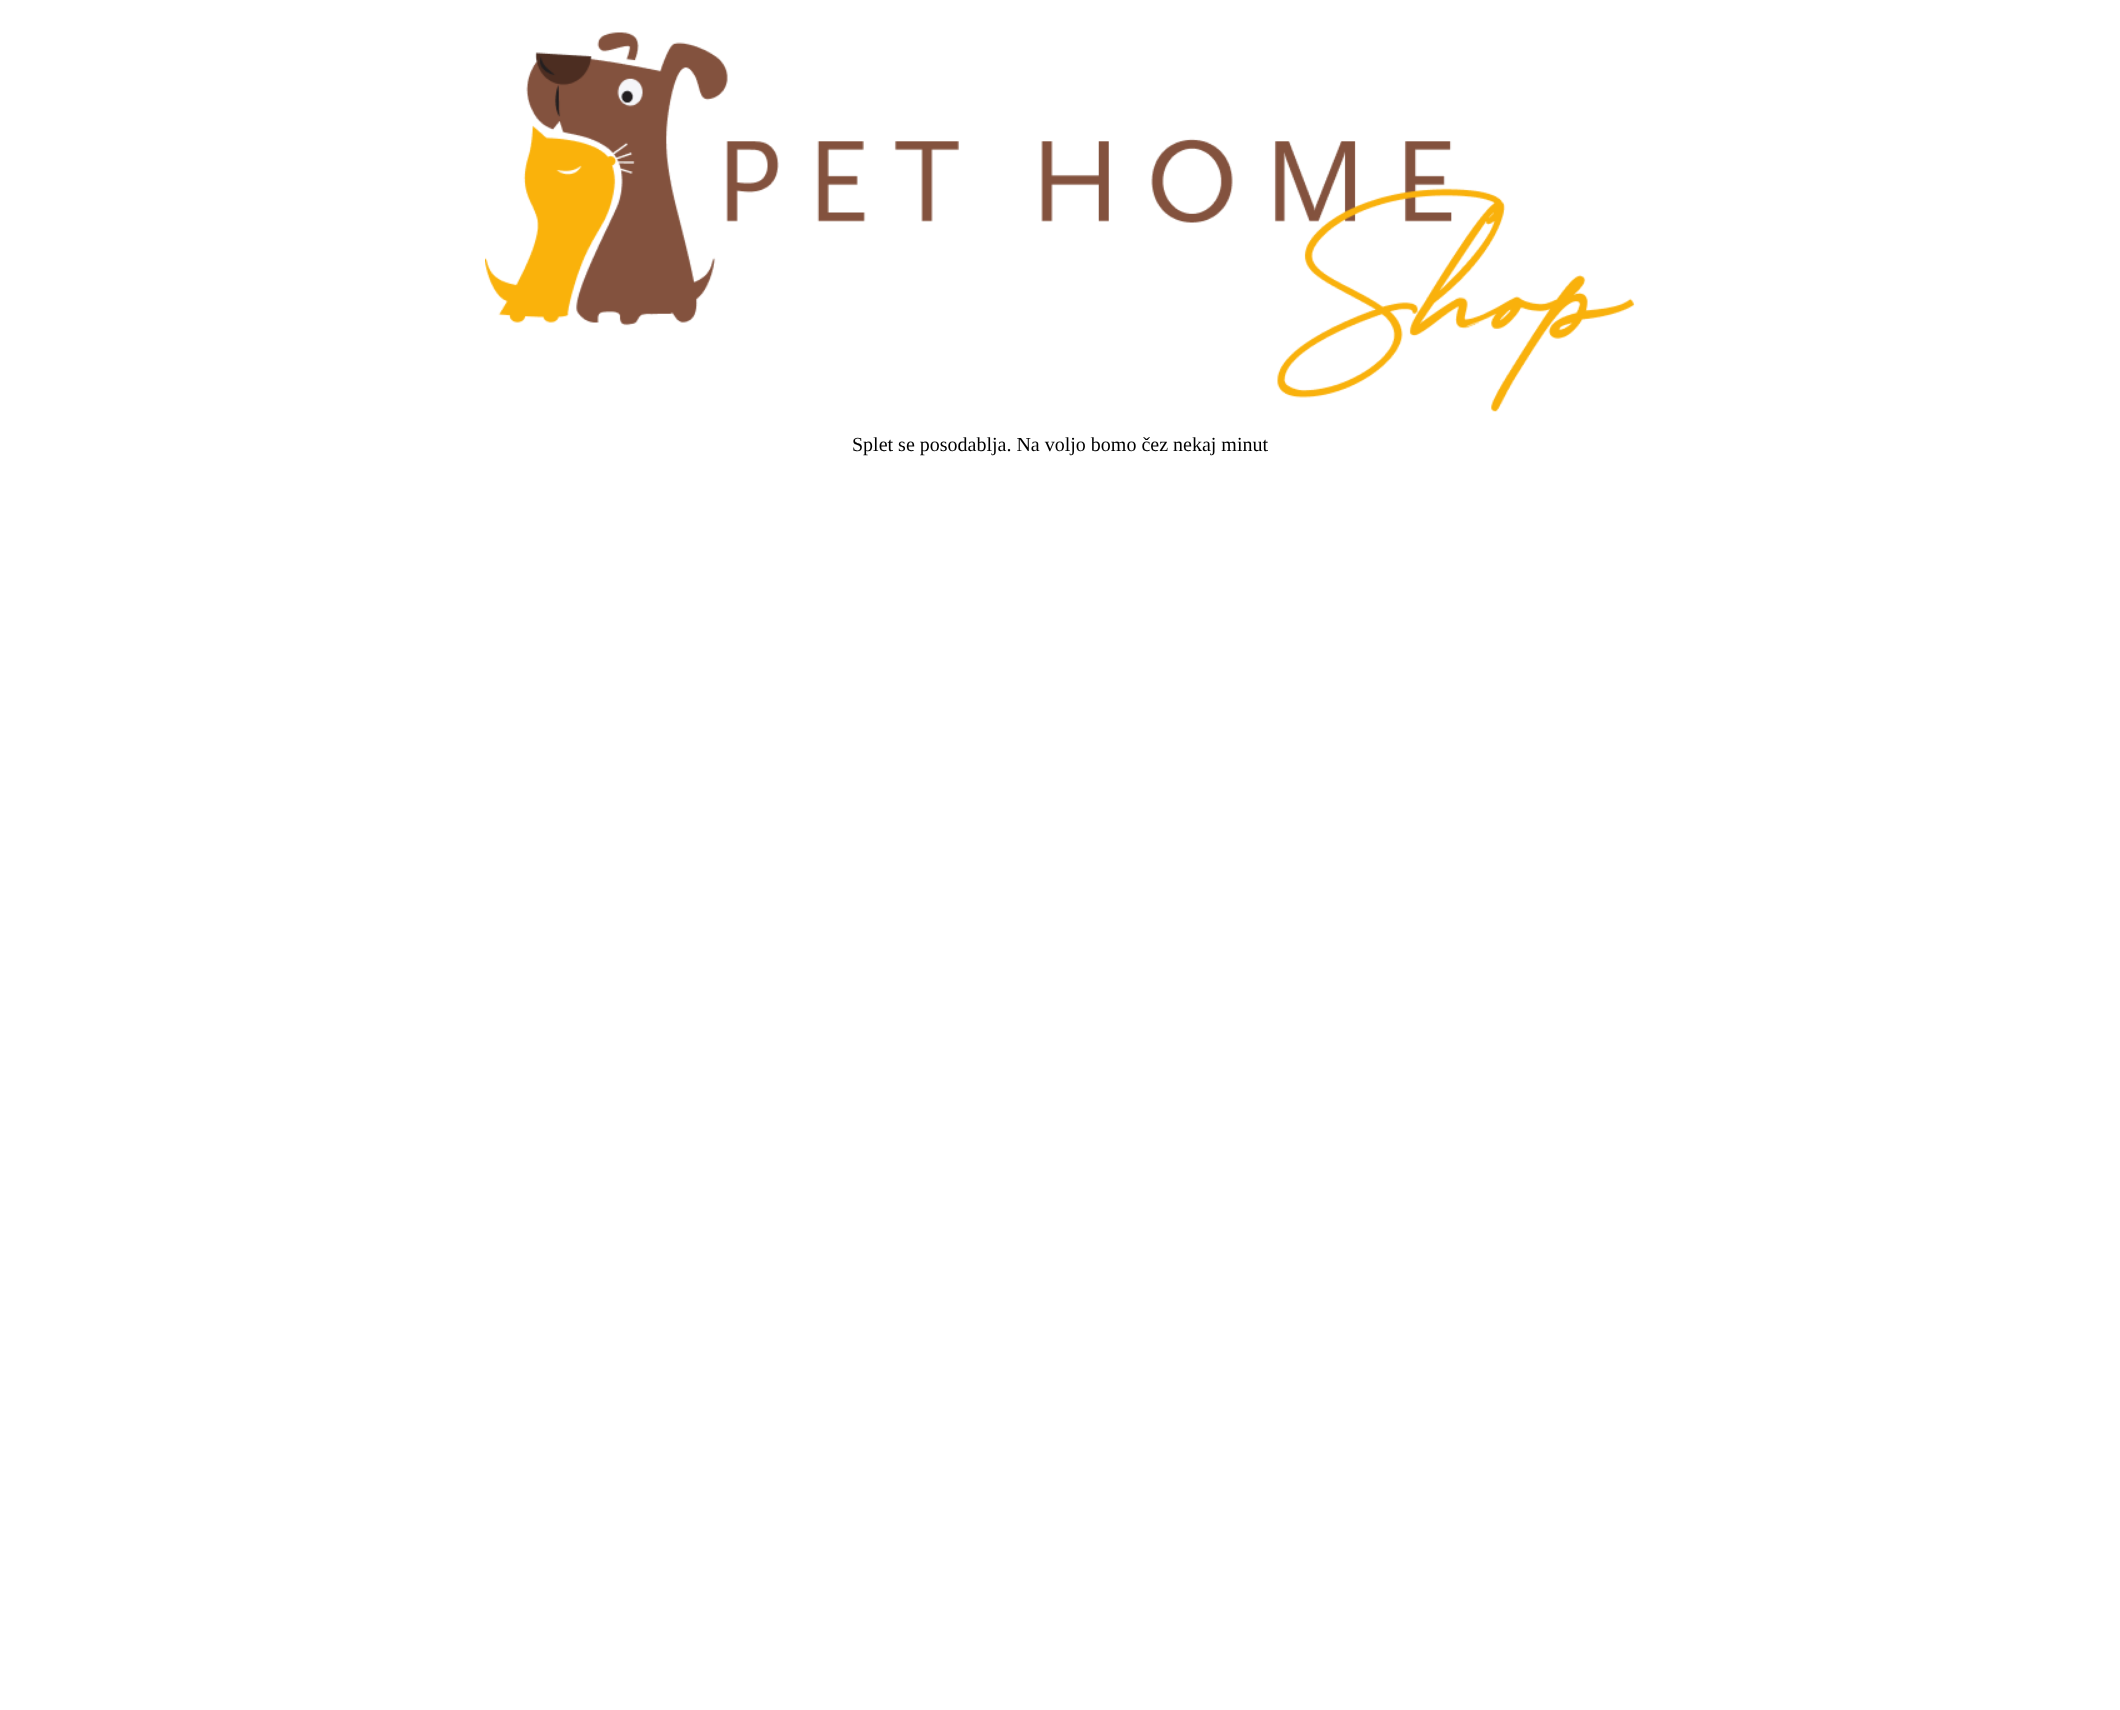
<!DOCTYPE html>
<meta charset="utf-8">
<style>body { margin: 0 } canvas { display: block }</style>
<canvas id="canvas" width="2120" height="1710"></canvas>
<script type="module">
  const canvas = document.getElementById("canvas");
  const ctx = canvas.getContext("2d");
  ctx.miterLimit = 4;
  ctx.fontKerning = "normal";
  async function loadImage(src) {
    const img = new Image();
    img.src = src;
    await img.decode();
    return img;
  }

  ctx.fillStyle = "#ffffff";
  ctx.fillRect(0, 0, 2120, 1710);
  ctx.drawImage(await loadImage("img1.png"), 485, 32, 1150, 380);
  ctx.font = "20px Liberation Serif";
  ctx.fillStyle = "#000000";
  ctx.fillText("Splet se posodablja. Na voljo bomo čez nekaj minut", 852, 451);
</script>
